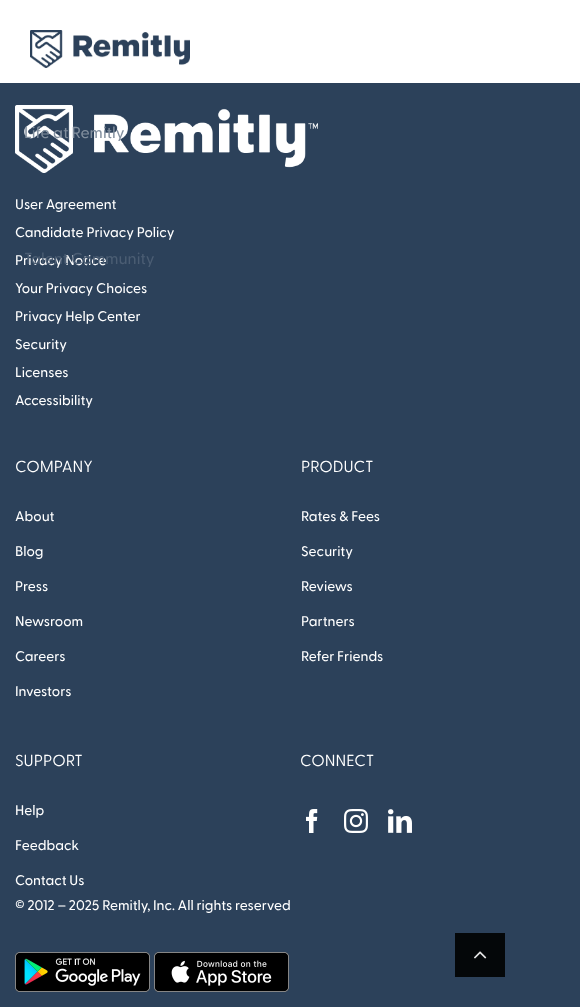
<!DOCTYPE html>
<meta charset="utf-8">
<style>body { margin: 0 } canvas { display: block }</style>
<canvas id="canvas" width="580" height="1007"></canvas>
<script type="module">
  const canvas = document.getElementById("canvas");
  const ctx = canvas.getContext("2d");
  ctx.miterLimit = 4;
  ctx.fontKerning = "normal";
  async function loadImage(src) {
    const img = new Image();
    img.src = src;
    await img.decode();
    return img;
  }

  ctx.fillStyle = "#2c415a";
  ctx.fillRect(0, 0, 580, 1007);
  ctx.fillStyle = "#ffffff";
  ctx.fillRect(0, 0, 580, 83);
  ctx.drawImage(await loadImage("img1.png"), 30, 30, 160, 38);
  ctx.drawImage(await loadImage("img2.png"), 15, 105, 303, 68);
  ctx.font = "500 16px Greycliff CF";
  ctx.fillStyle = "#828f9e";
  ctx.fillText("Life at Remitly", 24, 138);
  ctx.font = "500 14px Greycliff CF";
  ctx.fillStyle = "#ffffff";
  ctx.fillText("Privacy Notice", 15, 265);
  ctx.font = "500 16px Greycliff CF";
  ctx.fillStyle = "#4b5d73";
  ctx.fillText("Talent Community", 24, 264);
  ctx.font = "500 14px Greycliff CF";
  ctx.fillStyle = "#ffffff";
  ctx.fillText("User Agreement", 15, 209);
  ctx.fillText("Candidate Privacy Policy", 15, 237);
  ctx.fillText("Your Privacy Choices", 15, 293);
  ctx.fillText("Privacy Help Center", 15, 321);
  ctx.fillText("Security", 15, 349);
  ctx.fillText("Licenses", 15, 377);
  ctx.fillText("Accessibility", 15, 405);
  ctx.font = "16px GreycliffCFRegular";
  ctx.fillText("COMPANY", 15, 472);
  ctx.font = "500 14px Greycliff CF";
  ctx.fillText("About", 15, 521);
  ctx.fillText("Blog", 15, 556);
  ctx.fillText("Press", 15, 591);
  ctx.fillText("Newsroom", 15, 626);
  ctx.fillText("Careers", 15, 661);
  ctx.fillText("Investors", 15, 696);
  ctx.font = "16px GreycliffCFRegular";
  ctx.fillText("PRODUCT", 301, 472);
  ctx.font = "500 14px Greycliff CF";
  ctx.fillText("Rates & Fees", 301, 521);
  ctx.fillText("Security", 301, 556);
  ctx.fillText("Reviews", 301, 591);
  ctx.fillText("Partners", 301, 626);
  ctx.fillText("Refer Friends", 301, 661);
  ctx.font = "16px GreycliffCFRegular";
  ctx.fillText("SUPPORT", 15, 766);
  ctx.font = "500 14px Greycliff CF";
  ctx.fillText("Help", 15, 815);
  ctx.fillText("Feedback", 15, 850);
  ctx.fillText("Contact Us", 15, 885);
  ctx.font = "16px GreycliffCFRegular";
  ctx.fillText("CONNECT", 300, 766);
  ctx.drawImage(await loadImage("img3.png"), 306, 809, 12, 24);
  ctx.drawImage(await loadImage("img4.png"), 344, 809, 24, 24);
  ctx.drawImage(await loadImage("img5.png"), 388, 809, 24, 24);
  ctx.font = "500 14px Greycliff CF";
  ctx.fillText("© 2012 – 2025 Remitly, Inc. All rights reserved", 15, 910);
  ctx.drawImage(await loadImage("img6.png"), 15, 952, 135, 40);
  ctx.drawImage(await loadImage("img7.png"), 154, 952, 135, 40);
  ctx.fillStyle = "#040709";
  ctx.fillRect(455, 933, 50, 44);
  ctx.drawImage(await loadImage("img8.png"), 474, 951, 13, 8);
</script>
